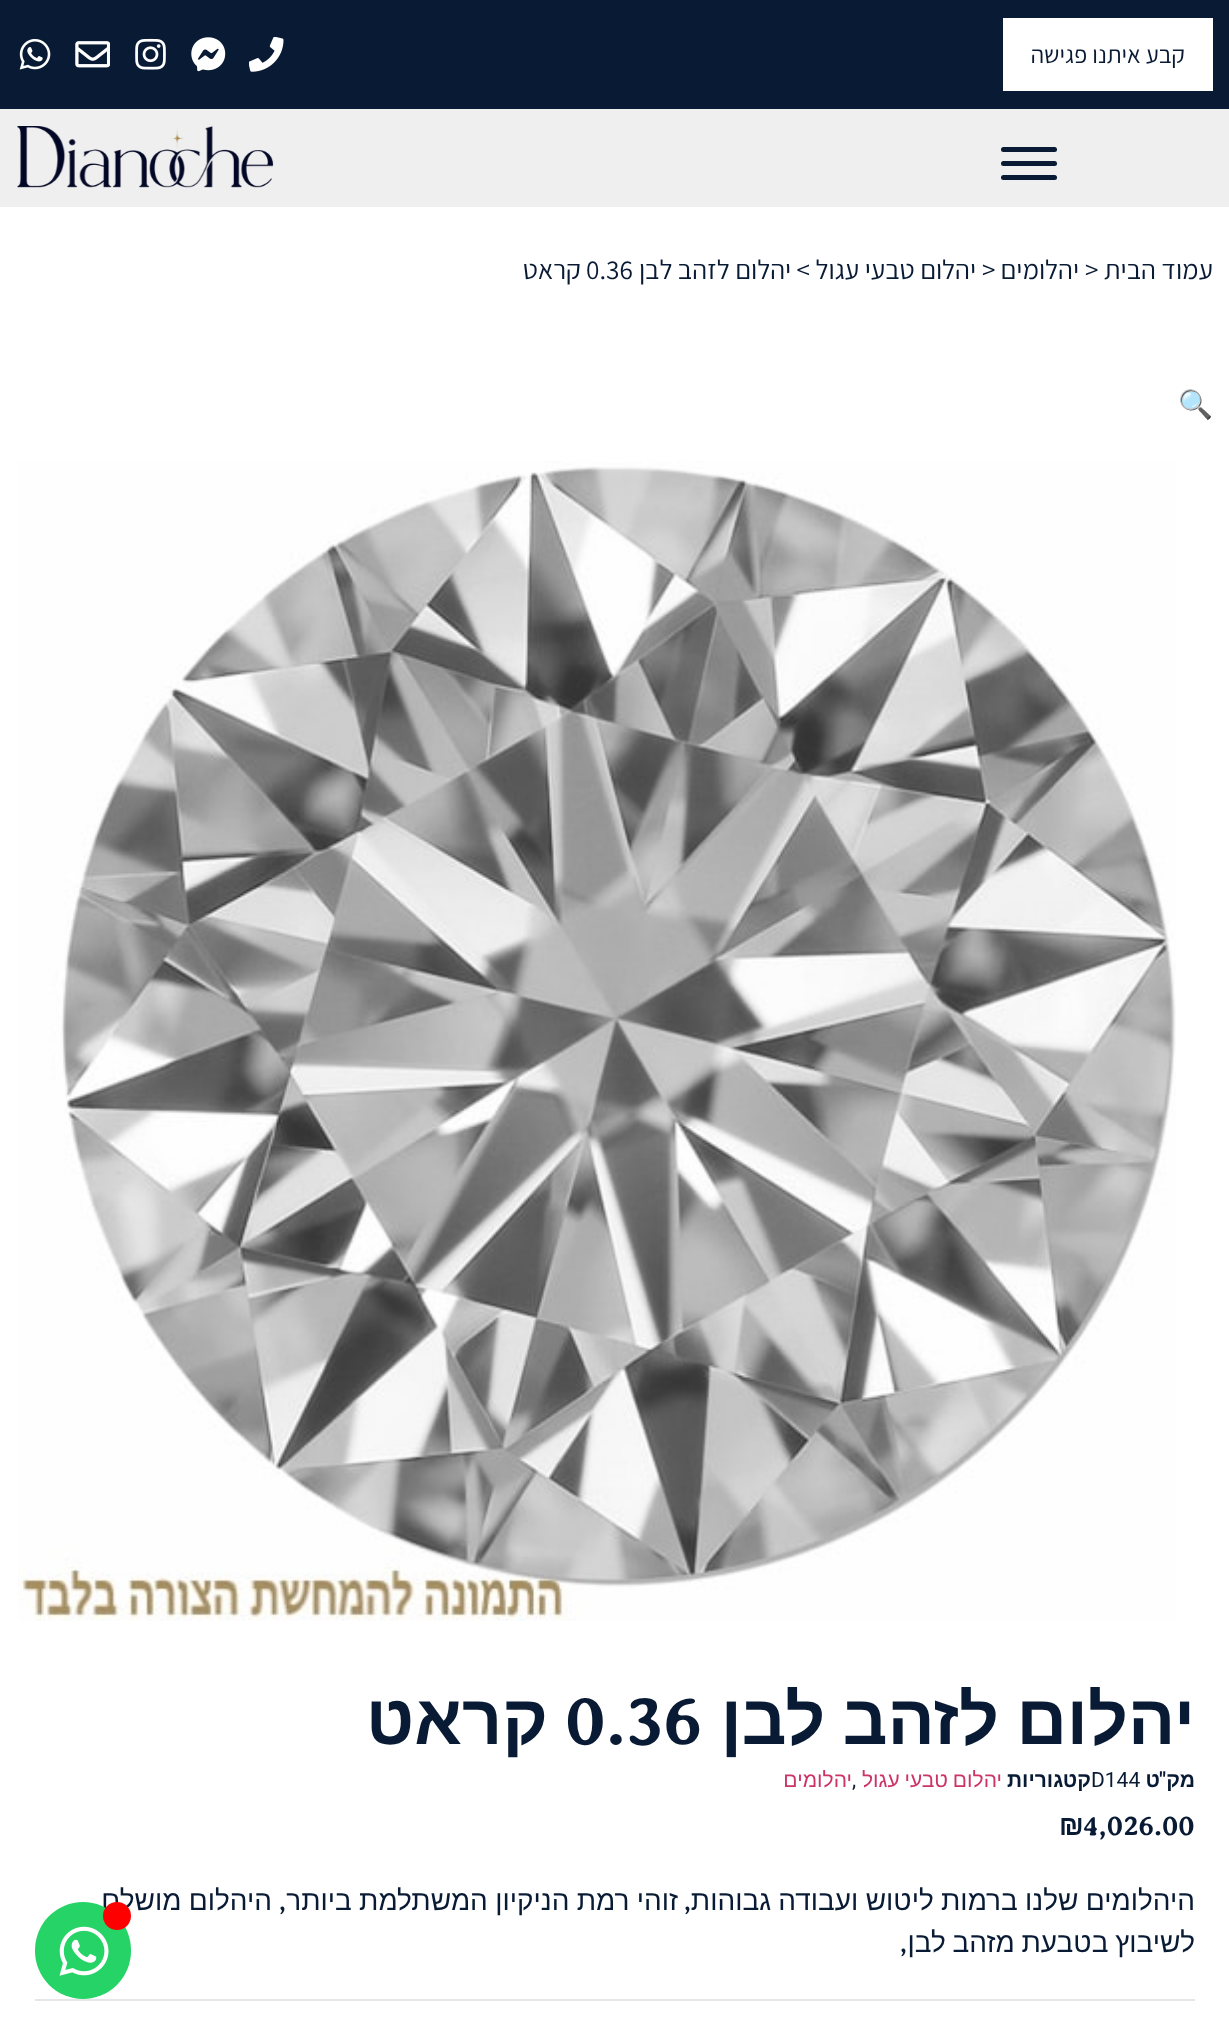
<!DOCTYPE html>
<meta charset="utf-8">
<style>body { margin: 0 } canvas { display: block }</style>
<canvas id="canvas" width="1229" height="2032"></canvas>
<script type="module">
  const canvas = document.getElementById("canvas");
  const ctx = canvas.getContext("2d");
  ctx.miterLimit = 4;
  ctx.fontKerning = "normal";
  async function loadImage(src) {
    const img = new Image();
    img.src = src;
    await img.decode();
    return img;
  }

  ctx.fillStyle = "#ffffff";
  ctx.fillRect(0, 0, 1229, 2032);
  ctx.fillStyle = "#091b34";
  ctx.fillRect(0, 0, 1229, 109);
  ctx.fillStyle = "#ffffff";
  ctx.fillRect(1003, 18, 210, 73);
  ctx.direction = "rtl";
  ctx.font = "24.5px Assistant";
  ctx.fillStyle = "#091b34";
  ctx.fillText("קבע איתנו פגישה", 1185, 63);
  ctx.drawImage(await loadImage("img1.png"), 249, 37, 35, 35);
  ctx.drawImage(await loadImage("img2.png"), 191, 37, 35, 35);
  ctx.drawImage(await loadImage("img3.png"), 135, 38, 31, 32);
  ctx.drawImage(await loadImage("img4.png"), 75, 41, 35, 27);
  ctx.drawImage(await loadImage("img5.png"), 19, 38, 32, 32);
  ctx.fillStyle = "#efefef";
  ctx.fillRect(0, 109, 1229, 98);
  ctx.fillStyle = "#091b34";
  ctx.beginPath();
  ctx.roundRect(1001, 147, 56, 5, 2.5);
  ctx.fill();
  ctx.beginPath();
  ctx.roundRect(1001, 161, 56, 5, 2.5);
  ctx.fill();
  ctx.beginPath();
  ctx.roundRect(1001, 175, 56, 5, 2.5);
  ctx.fill();
  ctx.drawImage(await loadImage("img6.png"), 17, 126, 257, 62);
  ctx.font = "27.25px Assistant";
  ctx.fillText("עמוד הבית", 1213, 279);
  ctx.direction = "ltr";
  ctx.fillText(">", 1085, 279);
  ctx.direction = "rtl";
  ctx.fillText("יהלומים", 1079, 279);
  ctx.direction = "ltr";
  ctx.fillText(">", 982, 279);
  ctx.direction = "rtl";
  ctx.fillText("יהלום טבעי עגול", 976, 279);
  ctx.fillText("> יהלום לזהב לבן", 810, 279);
  ctx.direction = "ltr";
  ctx.fillText("0.36", 586, 279);
  ctx.direction = "rtl";
  ctx.fillText("קראט", 581, 279);
  ctx.direction = "ltr";
  ctx.font = "28px Noto Color Emoji";
  ctx.fillStyle = "#cc3366";
  ctx.fillText("🔍", 1178, 414);
  ctx.drawImage(await loadImage("img7.png"), 18, 461, 1158, 1160);
  ctx.wordSpacing = "-2px";
  ctx.direction = "rtl";
  ctx.font = "bold 70px Liberation Sans";
  ctx.fillStyle = "#091b34";
  ctx.fillText("יהלום לזהב לבן", 1195, 1744);
  ctx.wordSpacing = "0px";
  ctx.direction = "ltr";
  ctx.font = "bold 70px Averia Serif Libre";
  ctx.fillText("0.36", 565, 1744);
  ctx.direction = "rtl";
  ctx.font = "bold 70px Liberation Sans";
  ctx.fillText("קראט", 548, 1744);
  ctx.font = "bold 21px Liberation Sans";
  ctx.fillText("מק", 1195, 1787);
  ctx.font = "bold 21px Roboto";
  ctx.fillText("\"", 1166, 1787);
  ctx.font = "bold 21px Liberation Sans";
  ctx.fillText("ט", 1160, 1787);
  ctx.direction = "ltr";
  ctx.font = "21px Roboto";
  ctx.fillText("D144", 1091, 1787);
  ctx.direction = "rtl";
  ctx.font = "bold 21px Liberation Sans";
  ctx.fillText("קטגוריות", 1091, 1787);
  ctx.wordSpacing = "-1px";
  ctx.font = "21px Liberation Sans";
  ctx.fillStyle = "#cc3366";
  ctx.fillText("יהלום טבעי עגול", 1002, 1787);
  ctx.wordSpacing = "0px";
  ctx.direction = "ltr";
  ctx.font = "21px Roboto";
  ctx.fillStyle = "#091b34";
  ctx.fillText(",", 852, 1787);
  ctx.direction = "rtl";
  ctx.font = "21px Liberation Sans";
  ctx.fillStyle = "#cc3366";
  ctx.fillText("יהלומים", 852, 1787);
  ctx.direction = "ltr";
  ctx.font = "bold 28px Averia Serif Libre";
  ctx.fillStyle = "#091b34";
  ctx.fillText("4,026.00", 1083, 1835);
  ctx.font = "bold 28px Liberation Sans";
  ctx.fillText("₪", 1059, 1835);
  ctx.wordSpacing = "-0.5px";
  ctx.direction = "rtl";
  ctx.font = "28px Liberation Sans";
  ctx.fillText("היהלומים שלנו ברמות ליטוש ועבודה גבוהות", 1195, 1910);
  ctx.wordSpacing = "0px";
  ctx.font = "28px Averia Serif Libre";
  ctx.fillText(",", 691, 1910);
  ctx.wordSpacing = "-0.5px";
  ctx.font = "28px Liberation Sans";
  ctx.fillText("זוהי רמת הניקיון המשתלמת ביותר", 678, 1910);
  ctx.wordSpacing = "0px";
  ctx.font = "28px Averia Serif Libre";
  ctx.fillText(",", 286, 1910);
  ctx.wordSpacing = "-0.5px";
  ctx.font = "28px Liberation Sans";
  ctx.fillText("היהלום מושלם", 272, 1910);
  ctx.wordSpacing = "-1px";
  ctx.fillText("לשיבוץ בטבעת מזהב לבן", 1195, 1952);
  ctx.wordSpacing = "0px";
  ctx.font = "28px Averia Serif Libre";
  ctx.fillText(",", 907, 1952);
  ctx.fillStyle = "#e6e6e6";
  ctx.fillRect(35, 1999, 1160, 2);
  ctx.fillStyle = "#25d366";
  ctx.beginPath();
  ctx.roundRect(35, 1902, 96, 97, 48);
  ctx.fill();
  ctx.drawImage(await loadImage("img8.png"), 59, 1926, 50, 50);
  ctx.fillStyle = "#ff0000";
  ctx.beginPath();
  ctx.arc(117, 1916, 14, 0, Math.PI * 2);
  ctx.fill();
</script>
